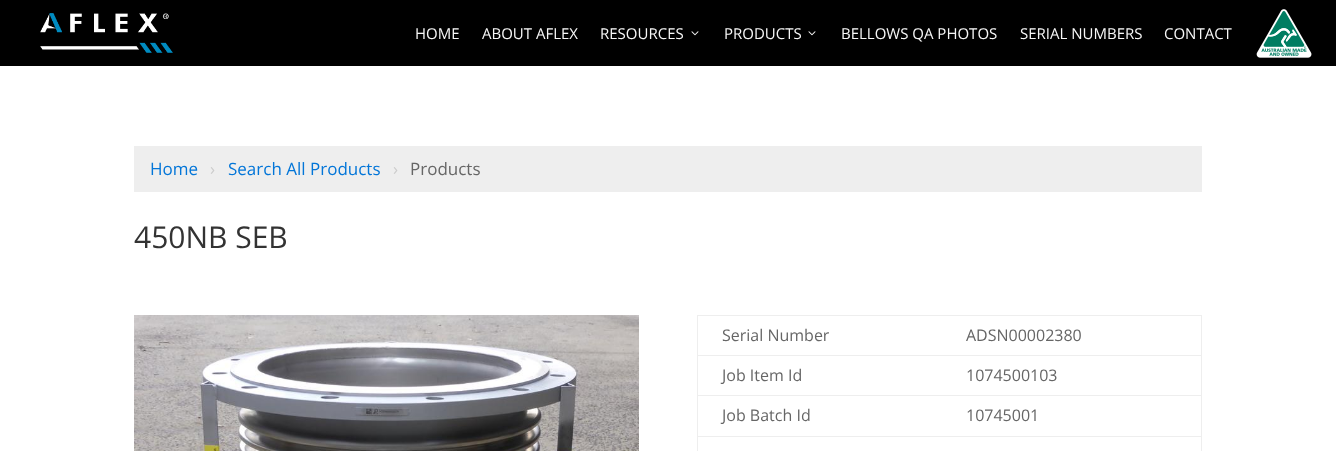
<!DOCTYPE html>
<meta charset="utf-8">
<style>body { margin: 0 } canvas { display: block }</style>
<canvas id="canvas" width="1336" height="451"></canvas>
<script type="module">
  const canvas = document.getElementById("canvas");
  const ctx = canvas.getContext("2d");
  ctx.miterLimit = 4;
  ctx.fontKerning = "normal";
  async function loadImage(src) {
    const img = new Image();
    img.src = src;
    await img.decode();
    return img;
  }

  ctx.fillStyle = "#ffffff";
  ctx.fillRect(0, 0, 1336, 451);
  ctx.fillStyle = "#000000";
  ctx.fillRect(0, 0, 1336, 66);
  ctx.drawImage(await loadImage("img1.png"), 40, 13, 133, 40);
  ctx.font = "15px Open Sans";
  ctx.fillStyle = "#f7f7f7";
  ctx.fillText("HOME", 415, 39);
  ctx.fillText("ABOUT AFLEX", 482, 39);
  ctx.fillText("RESOURCES", 600, 39);
  ctx.drawImage(await loadImage("img2.png"), 691, 31, 8, 5);
  ctx.fillText("PRODUCTS", 724, 39);
  ctx.drawImage(await loadImage("img2.png"), 808, 31, 8, 5);
  ctx.fillText("BELLOWS QA PHOTOS", 841, 39);
  ctx.fillText("SERIAL NUMBERS", 1020, 39);
  ctx.fillText("CONTACT", 1164, 39);
  ctx.drawImage(await loadImage("img3.png"), 1256, 9, 56, 49);
  ctx.fillStyle = "#eeeeee";
  ctx.fillRect(134, 146, 1068, 46);
  ctx.font = "17px Open Sans";
  ctx.fillStyle = "#0275d8";
  ctx.fillText("Home", 150, 175);
  ctx.fillStyle = "#cccccc";
  ctx.fillText("›", 210, 175);
  ctx.fillStyle = "#0275d8";
  ctx.fillText("Search All Products", 228, 175);
  ctx.fillStyle = "#cccccc";
  ctx.fillText("›", 393, 175);
  ctx.fillStyle = "#666666";
  ctx.fillText("Products", 410, 175);
  ctx.font = "30px Open Sans";
  ctx.fillStyle = "#333333";
  ctx.fillText("450NB SEB", 134, 248);
  ctx.drawImage(await loadImage("img4.png"), 134, 315, 505, 136);
  ctx.fillStyle = "#eeeeee";
  ctx.fillRect(697, 315, 505, 1);
  ctx.fillRect(1201, 315, 1, 136);
  ctx.fillRect(697, 315, 1, 136);
  ctx.font = "16px Open Sans";
  ctx.fillStyle = "#666666";
  ctx.fillText("Serial Number", 722, 341);
  ctx.fillText("ADSN00002380", 966, 341);
  ctx.fillText("Job Item Id", 722, 381);
  ctx.fillStyle = "#eeeeee";
  ctx.fillRect(697, 355, 505, 1);
  ctx.fillStyle = "#666666";
  ctx.fillText("1074500103", 966, 381);
  ctx.fillText("Job Batch Id", 722, 421);
  ctx.fillStyle = "#eeeeee";
  ctx.fillRect(697, 395, 505, 1);
  ctx.fillStyle = "#666666";
  ctx.fillText("10745001", 966, 421);
  ctx.fillStyle = "#eeeeee";
  ctx.fillRect(697, 436, 505, 1);
</script>
